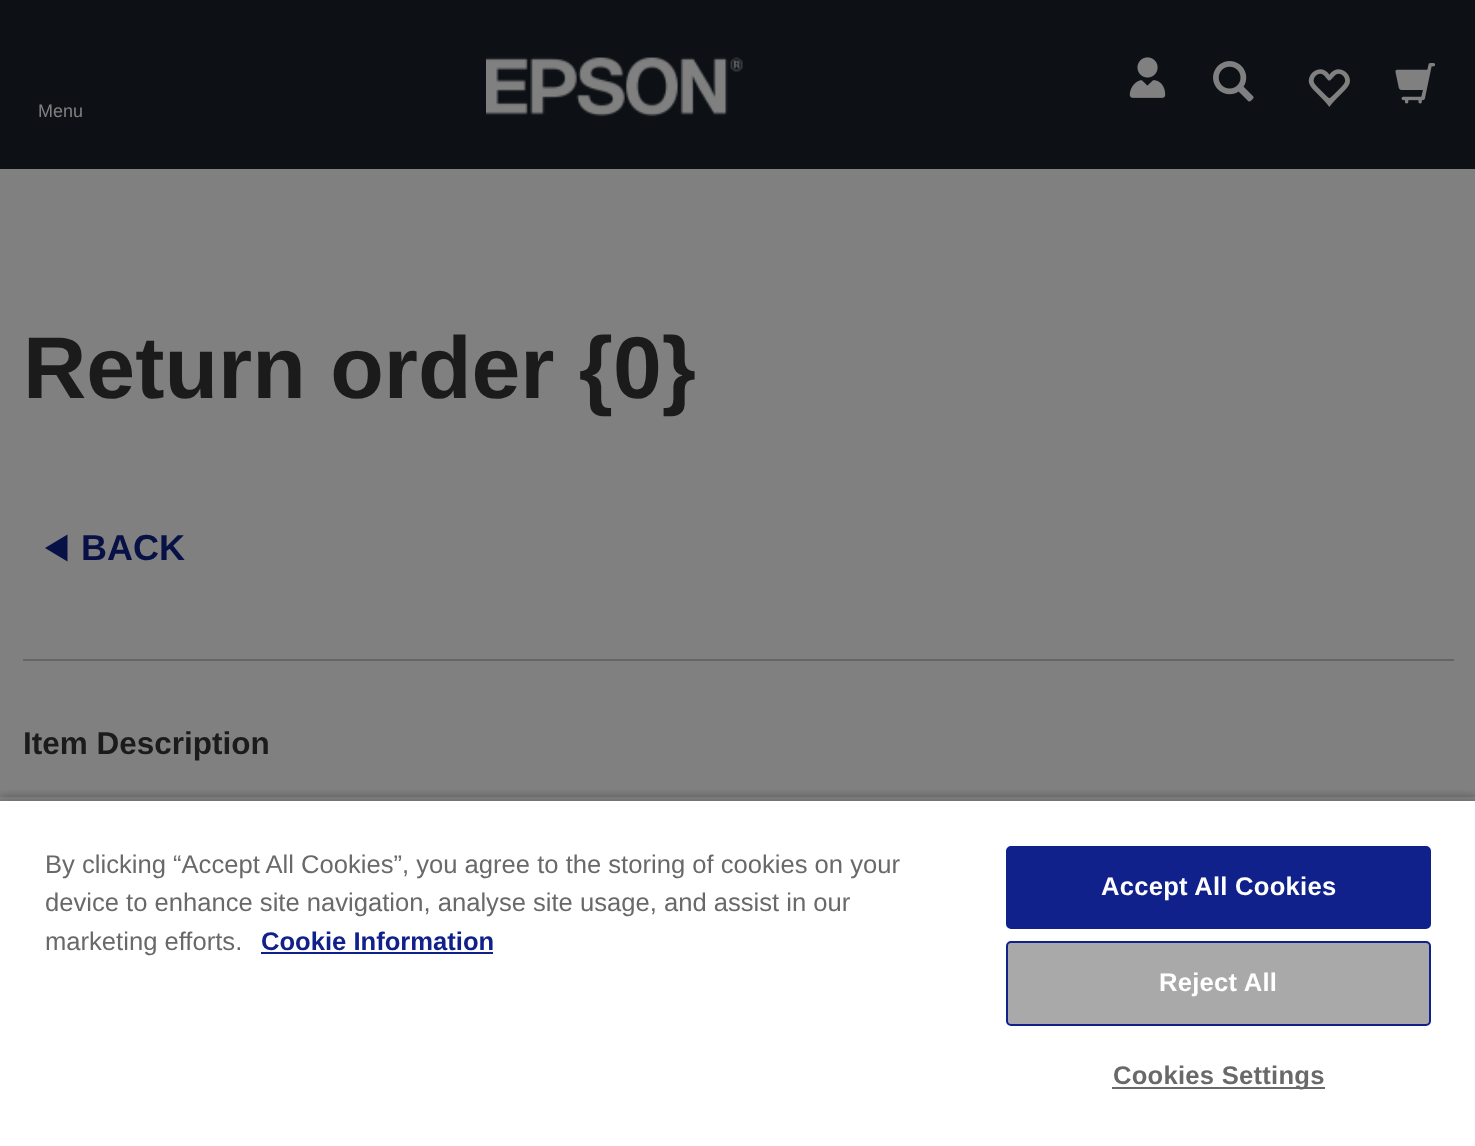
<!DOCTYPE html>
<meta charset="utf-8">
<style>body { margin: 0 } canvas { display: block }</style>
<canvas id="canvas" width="1475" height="1146"></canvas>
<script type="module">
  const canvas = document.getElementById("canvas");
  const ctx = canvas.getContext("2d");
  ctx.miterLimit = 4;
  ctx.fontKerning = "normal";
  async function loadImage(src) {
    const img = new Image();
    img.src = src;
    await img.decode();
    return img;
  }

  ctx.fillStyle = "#808080";
  ctx.fillRect(0, 0, 1475, 1146);
  ctx.fillStyle = "#0d1116";
  ctx.fillRect(0, 0, 1475, 169);
  ctx.drawImage(await loadImage("img1.png"), 486, 57, 257, 60);
  ctx.drawImage(await loadImage("img2.png"), 1129, 57, 37, 41);
  ctx.drawImage(await loadImage("img3.png"), 1213, 61, 41, 41);
  ctx.drawImage(await loadImage("img4.png"), 1308, 69, 42, 38);
  ctx.drawImage(await loadImage("img5.png"), 1395, 63, 41, 41);
  ctx.font = "18px Liberation Sans";
  ctx.fillStyle = "#808080";
  ctx.fillText("Menu", 38, 117);
  ctx.font = "bold 87.75px Liberation Sans";
  ctx.fillStyle = "#1b1b1b";
  ctx.fillText("Return order {0}", 23, 398);
  ctx.fillStyle = "#081146";
  ctx.beginPath();
  ctx.moveTo(67.5, 534.5);
  ctx.lineTo(67.5, 561.5);
  ctx.lineTo(45, 548);
  ctx.closePath();
  ctx.fill();
  ctx.font = "bold 36px Liberation Sans";
  ctx.fillText("BACK", 81, 560);
  ctx.fillStyle = "#646565";
  ctx.fillRect(23, 659, 1431, 2);
  ctx.font = "bold 31.5px Liberation Sans";
  ctx.fillStyle = "#1b1b1b";
  ctx.fillText("Item Description", 23, 754);
  ctx.save();
  ctx.beginPath();
  ctx.rect(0, 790, 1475, 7);
  ctx.clip();
  ctx.fillStyle = "rgba(0, 0, 0, 0.35)";
  ctx.filter = "blur(4.5px)";
  ctx.beginPath();
  ctx.rect(0, 797, 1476, 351);
  ctx.fill();
  ctx.filter = "none";
  ctx.restore();
  ctx.save();
  ctx.beginPath();
  ctx.rect(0, 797, 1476, 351);
  ctx.clip();
  ctx.fillStyle = "rgba(0, 0, 0, 0.2)";
  ctx.filter = "blur(4.5px)";
  ctx.beginPath();
  ctx.rect(0, 801, 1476, 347);
  ctx.fill();
  ctx.filter = "none";
  ctx.restore();
  ctx.fillStyle = "#ffffff";
  ctx.fillRect(0, 801, 1475, 345);
  ctx.font = "25.6px Liberation Sans";
  ctx.fillStyle = "#696969";
  ctx.fillText("By clicking “Accept All Cookies”, you agree to the storing of cookies on your", 45, 873);
  ctx.fillText("device to enhance site navigation, analyse site usage, and assist in our", 45, 911);
  ctx.fillText("marketing efforts.", 45, 950);
  ctx.font = "bold 25.6px Liberation Sans";
  ctx.fillStyle = "#10218b";
  ctx.fillText("Cookie Information", 261, 950);
  ctx.fillRect(261, 952, 232, 2);
  ctx.beginPath();
  ctx.roundRect(1007, 847, 423, 81, 4);
  ctx.fill();
  ctx.strokeStyle = "#10218b";
  ctx.lineWidth = 2;
  ctx.stroke();
  ctx.letterSpacing = "0.25px";
  ctx.fillStyle = "#ffffff";
  ctx.fillText("Accept All Cookies", 1101, 895);
  ctx.fillStyle = "#a9a9a9";
  ctx.beginPath();
  ctx.roundRect(1007, 942, 423, 83, 4);
  ctx.fill();
  ctx.stroke();
  ctx.fillStyle = "#ffffff";
  ctx.fillText("Reject All", 1159, 991);
  ctx.fillStyle = "#696969";
  ctx.fillRect(1112, 1087, 213, 2);
  ctx.fillText("Cookies Settings", 1113, 1084);
</script>
